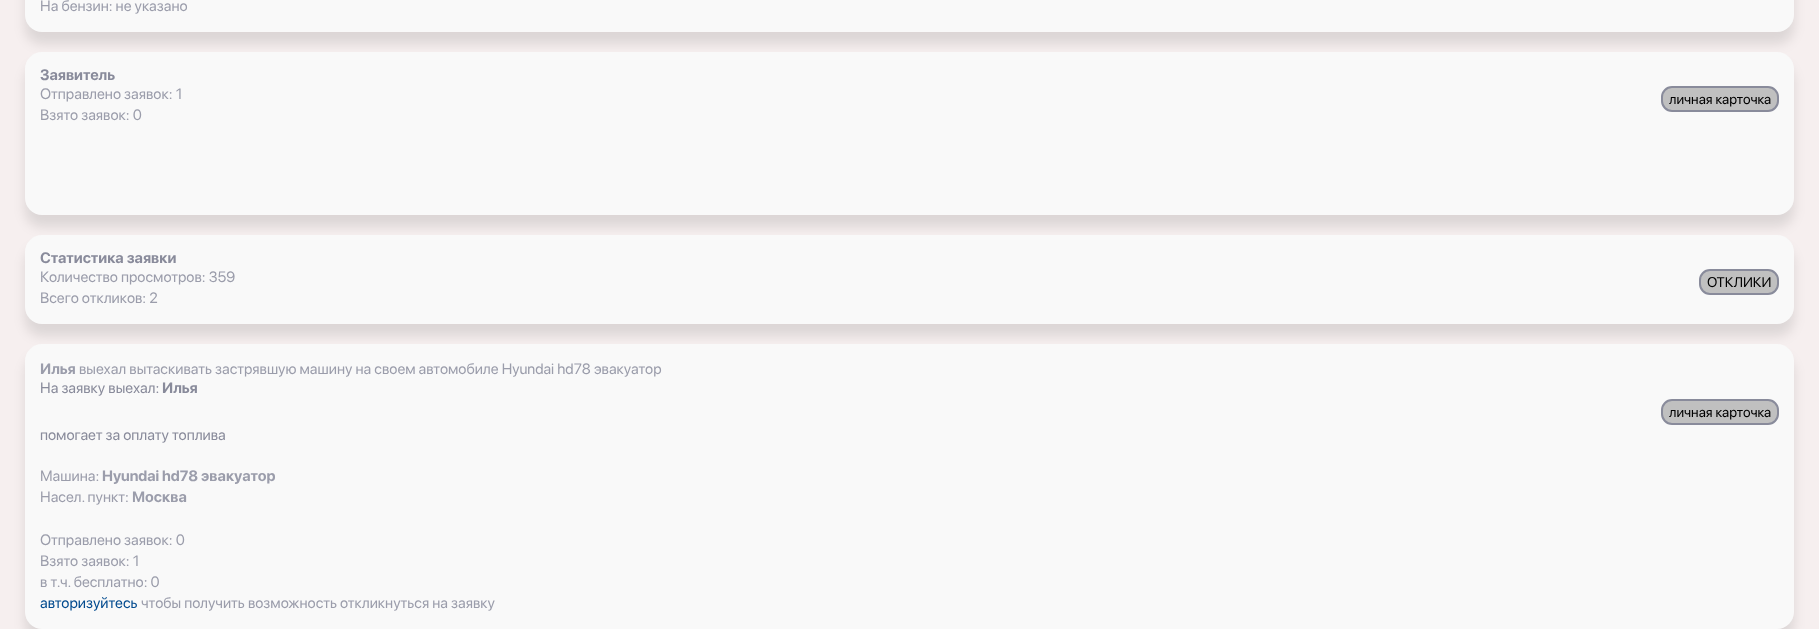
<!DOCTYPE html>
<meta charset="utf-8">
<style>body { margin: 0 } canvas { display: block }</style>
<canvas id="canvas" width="1819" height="629"></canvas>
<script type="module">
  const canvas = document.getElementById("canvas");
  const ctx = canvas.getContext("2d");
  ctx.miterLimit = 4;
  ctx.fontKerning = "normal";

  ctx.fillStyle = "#f6efef";
  ctx.fillRect(0, 0, 1819, 629);
  ctx.fillStyle = "rgba(0, 0, 0, 0.1)";
  ctx.filter = "blur(6px)";
  ctx.beginPath();
  ctx.roundRect(25, -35, 1769, 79, 17);
  ctx.fill();
  ctx.filter = "none";
  ctx.fillStyle = "#f9f9f9";
  ctx.beginPath();
  ctx.roundRect(25, -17, 1769, 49, 17);
  ctx.fill();
  ctx.font = "15px SF Pro Display";
  ctx.fillStyle = "#9b9dab";
  ctx.fillText("На бензин: не указано", 40, 11);
  ctx.fillStyle = "rgba(0, 0, 0, 0.1)";
  ctx.filter = "blur(6px)";
  ctx.beginPath();
  ctx.roundRect(25, 64, 1769, 163, 17);
  ctx.fill();
  ctx.filter = "none";
  ctx.fillStyle = "#f9f9f9";
  ctx.beginPath();
  ctx.roundRect(25, 52, 1769, 163, 17);
  ctx.fill();
  ctx.font = "bold 15px SF Pro Display";
  ctx.fillStyle = "#898b9b";
  ctx.fillText("Заявитель", 40, 80);
  ctx.font = "15px SF Pro Display";
  ctx.fillStyle = "#9b9dab";
  ctx.fillText("Отправлено заявок: 1", 40, 99);
  ctx.fillStyle = "#c0c0c0";
  ctx.beginPath();
  ctx.roundRect(1662, 87, 116, 24, 10);
  ctx.fill();
  ctx.strokeStyle = "#898b9b";
  ctx.lineWidth = 2;
  ctx.stroke();
  ctx.font = "14px SF Pro Display";
  ctx.fillStyle = "#000000";
  ctx.fillText("личная карточка", 1669, 104);
  ctx.font = "15px SF Pro Display";
  ctx.fillStyle = "#9b9dab";
  ctx.fillText("Взято заявок: 0", 40, 120);
  ctx.fillStyle = "rgba(0, 0, 0, 0.1)";
  ctx.filter = "blur(6px)";
  ctx.beginPath();
  ctx.roundRect(25, 247, 1769, 89, 17);
  ctx.fill();
  ctx.filter = "none";
  ctx.fillStyle = "#f9f9f9";
  ctx.beginPath();
  ctx.roundRect(25, 235, 1769, 89, 17);
  ctx.fill();
  ctx.font = "bold 15px SF Pro Display";
  ctx.fillStyle = "#898b9b";
  ctx.fillText("Статистика заявки", 40, 263);
  ctx.font = "15px SF Pro Display";
  ctx.fillStyle = "#9b9dab";
  ctx.fillText("Количество просмотров: 359", 40, 282);
  ctx.fillStyle = "#c0c0c0";
  ctx.beginPath();
  ctx.roundRect(1700, 270, 78, 24, 10);
  ctx.fill();
  ctx.stroke();
  ctx.font = "14px SF Pro Display";
  ctx.fillStyle = "#000000";
  ctx.fillText("ОТКЛИКИ", 1707, 287);
  ctx.font = "15px SF Pro Display";
  ctx.fillStyle = "#9b9dab";
  ctx.fillText("Всего откликов: 2", 40, 303);
  ctx.fillStyle = "rgba(0, 0, 0, 0.1)";
  ctx.filter = "blur(6px)";
  ctx.beginPath();
  ctx.roundRect(25, 356, 1769, 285, 17);
  ctx.fill();
  ctx.filter = "none";
  ctx.fillStyle = "#f9f9f9";
  ctx.beginPath();
  ctx.roundRect(25, 344, 1769, 285, 17);
  ctx.fill();
  ctx.font = "bold 15px SF Pro Display";
  ctx.fillStyle = "#9b9dab";
  ctx.fillText("Илья", 40, 374);
  ctx.font = "15px SF Pro Display";
  ctx.fillText("выехал вытаскивать застрявшую машину на своем автомобиле Hyundai hd78 эвакуатор", 79, 374);
  ctx.fillStyle = "#898b9b";
  ctx.fillText("На заявку выехал:", 40, 393);
  ctx.font = "bold 15px SF Pro Display";
  ctx.fillText("Илья", 162, 393);
  ctx.fillStyle = "#c0c0c0";
  ctx.beginPath();
  ctx.roundRect(1662, 400, 116, 24, 10);
  ctx.fill();
  ctx.stroke();
  ctx.font = "14px SF Pro Display";
  ctx.fillStyle = "#000000";
  ctx.fillText("личная карточка", 1669, 417);
  ctx.font = "15px SF Pro Display";
  ctx.fillStyle = "#898b9b";
  ctx.fillText("помогает за оплату топлива", 40, 440);
  ctx.fillStyle = "#9b9dab";
  ctx.fillText("Машина:", 40, 481);
  ctx.font = "bold 15px SF Pro Display";
  ctx.fillText("Hyundai hd78 эвакуатор", 102, 481);
  ctx.font = "15px SF Pro Display";
  ctx.fillText("Насел. пункт:", 40, 502);
  ctx.font = "bold 15px SF Pro Display";
  ctx.fillText("Москва", 132, 502);
  ctx.font = "15px SF Pro Display";
  ctx.fillText("Отправлено заявок: 0", 40, 545);
  ctx.fillText("Взято заявок: 1", 40, 566);
  ctx.fillText("в т.ч. бесплатно: 0", 40, 587);
  ctx.fillStyle = "#034b8f";
  ctx.fillText("авторизуйтесь", 40, 608);
  ctx.fillStyle = "#9b9dab";
  ctx.fillText("чтобы получить возможность откликнуться на заявку", 141, 608);
</script>
